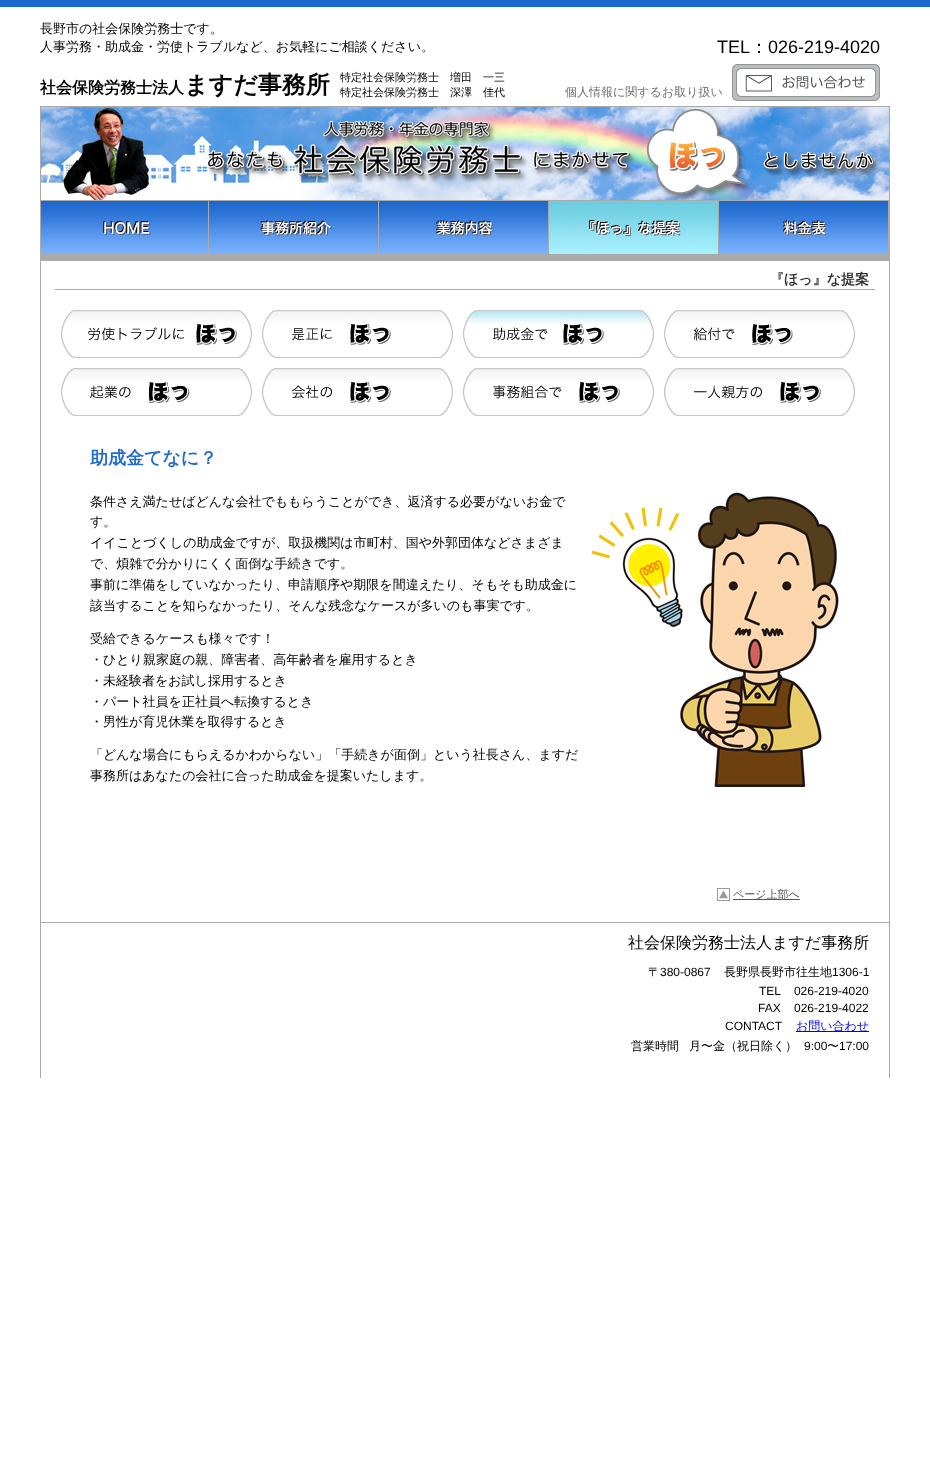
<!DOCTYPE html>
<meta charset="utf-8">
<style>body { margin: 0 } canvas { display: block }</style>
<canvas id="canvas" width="930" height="1460"></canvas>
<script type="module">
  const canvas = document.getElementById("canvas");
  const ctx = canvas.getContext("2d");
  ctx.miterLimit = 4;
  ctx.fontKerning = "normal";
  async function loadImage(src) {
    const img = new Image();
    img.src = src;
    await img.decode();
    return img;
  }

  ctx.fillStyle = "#ffffff";
  ctx.fillRect(0, 0, 930, 1460);
  ctx.fillStyle = "#1d68ce";
  ctx.fillRect(0, 0, 930, 7);
  ctx.font = "500 13px WenQuanYi Zen Hei";
  ctx.fillStyle = "#000000";
  ctx.fillText("長野市の社会保険労務士です。", 40, 33);
  ctx.fillText("人事労務・助成金・労使トラブルなど、お気軽にご相談ください。", 40, 51);
  ctx.font = "18px Liberation Sans";
  ctx.fillText("TEL", 717, 53);
  ctx.font = "500 18px WenQuanYi Zen Hei";
  ctx.fillText("：", 750, 53);
  ctx.font = "18px Liberation Sans";
  ctx.fillText("026-219-4020", 768, 53);
  ctx.font = "500 12px WenQuanYi Zen Hei";
  ctx.fillStyle = "#707070";
  ctx.fillText("個人情報に関するお取り扱い", 565, 96);
  ctx.drawImage(await loadImage("img1.png"), 732, 64, 148, 37);
  ctx.font = "bold 16px WenQuanYi Zen Hei";
  ctx.fillStyle = "#000000";
  ctx.fillText("社会保険労務士法人", 40, 93);
  ctx.font = "bold 24px WenQuanYi Zen Hei";
  ctx.fillText("ますだ事務所", 184, 93);
  ctx.font = "500 11px WenQuanYi Zen Hei";
  ctx.fillText("特定社会保険労務士　増田　一三", 340, 81);
  ctx.fillText("特定社会保険労務士　深澤　佳代", 340, 96);
  ctx.fillStyle = "#aaaaaa";
  ctx.fillRect(40, 106, 850, 1);
  ctx.fillRect(889, 106, 1, 972);
  ctx.fillRect(40, 106, 1, 972);
  ctx.drawImage(await loadImage("img2.png"), 41, 107, 848, 93);
  ctx.drawImage(await loadImage("img3.png"), 41, 200, 168, 55);
  ctx.drawImage(await loadImage("img4.png"), 209, 200, 170, 55);
  ctx.drawImage(await loadImage("img5.png"), 379, 200, 170, 55);
  ctx.drawImage(await loadImage("img6.png"), 549, 200, 170, 55);
  ctx.drawImage(await loadImage("img7.png"), 719, 200, 170, 55);
  ctx.fillRect(41, 255, 848, 6);
  ctx.font = "bold 14px WenQuanYi Zen Hei";
  ctx.fillStyle = "#333333";
  ctx.fillText("『ほっ』な提案", 770, 284);
  ctx.fillStyle = "#aaaaaa";
  ctx.fillRect(55, 289, 820, 1);
  ctx.drawImage(await loadImage("img8.png"), 61, 310, 191, 48);
  ctx.drawImage(await loadImage("img9.png"), 262, 310, 191, 48);
  ctx.drawImage(await loadImage("img10.png"), 463, 310, 191, 48);
  ctx.drawImage(await loadImage("img11.png"), 664, 310, 191, 48);
  ctx.drawImage(await loadImage("img12.png"), 61, 368, 191, 48);
  ctx.drawImage(await loadImage("img13.png"), 262, 368, 191, 48);
  ctx.drawImage(await loadImage("img14.png"), 463, 368, 191, 48);
  ctx.drawImage(await loadImage("img15.png"), 664, 368, 191, 48);
  ctx.font = "bold 18px WenQuanYi Zen Hei";
  ctx.fillStyle = "#226bd1";
  ctx.fillText("助成金てなに？", 90, 464);
  ctx.font = "500 13px WenQuanYi Zen Hei";
  ctx.fillStyle = "#000000";
  ctx.fillText("条件さえ満たせばどんな会社でももらうことができ、返済する必要がないお金で", 90, 506);
  ctx.fillText("す。", 90, 526);
  ctx.fillText("イイことづくしの助成金ですが、取扱機関は市町村、国や外郭団体などさまざま", 90, 547);
  ctx.fillText("で、煩雑で分かりにくく面倒な手続きです。", 90, 568);
  ctx.fillText("事前に準備をしていなかったり、申請順序や期限を間違えたり、そもそも助成金に", 90, 589);
  ctx.fillText("該当することを知らなかったり、そんな残念なケースが多いのも事実です。", 90, 610);
  ctx.drawImage(await loadImage("img16.png"), 591, 492, 248, 295);
  ctx.fillText("受給できるケースも様々です！", 90, 643);
  ctx.fillText("・ひとり親家庭の親、障害者、高年齢者を雇用するとき", 90, 664);
  ctx.fillText("・未経験者をお試し採用するとき", 90, 685);
  ctx.fillText("・パート社員を正社員へ転換するとき", 90, 706);
  ctx.fillText("・男性が育児休業を取得するとき", 90, 726);
  ctx.fillText("「どんな場合にもらえるかわからない」「手続きが面倒」という社長さん、ますだ", 90, 759);
  ctx.fillText("事務所はあなたの会社に合った助成金を提案いたします。", 90, 780);
  ctx.drawImage(await loadImage("img17.png"), 717, 888, 13, 13);
  ctx.fillStyle = "#555555";
  ctx.fillRect(733, 899, 67, 1);
  ctx.font = "500 11px WenQuanYi Zen Hei";
  ctx.fillText("ページ上部へ", 733, 898);
  ctx.fillStyle = "#aaaaaa";
  ctx.fillRect(41, 922, 848, 1);
  ctx.font = "500 16px WenQuanYi Zen Hei";
  ctx.fillStyle = "#000000";
  ctx.fillText("社会保険労務士法人ますだ事務所", 628, 948);
  ctx.font = "500 12px WenQuanYi Zen Hei";
  ctx.fillText("〒", 648, 976);
  ctx.font = "12px Liberation Sans";
  ctx.fillText("380-0867", 660, 976);
  ctx.font = "500 12px WenQuanYi Zen Hei";
  ctx.fillText("長野県長野市往生地", 724, 976);
  ctx.font = "12px Liberation Sans";
  ctx.fillText("1306-1", 832, 976);
  ctx.fillText("TEL    026-219-4020", 759, 995);
  ctx.fillText("FAX    026-219-4022", 758, 1012);
  ctx.fillText("CONTACT", 725, 1030);
  ctx.fillStyle = "#0000ee";
  ctx.fillRect(796, 1031, 73, 1);
  ctx.font = "500 12px WenQuanYi Zen Hei";
  ctx.fillText("お問い合わせ", 796, 1030);
  ctx.fillStyle = "#000000";
  ctx.fillText("営業時間", 631, 1050);
  ctx.fillText("月〜金（祝日除く）", 689, 1050);
  ctx.font = "12px Liberation Sans";
  ctx.fillText("9:00", 804, 1050);
  ctx.font = "500 12px WenQuanYi Zen Hei";
  ctx.fillText("〜", 827, 1050);
  ctx.font = "12px Liberation Sans";
  ctx.fillText("17:00", 839, 1050);
</script>
